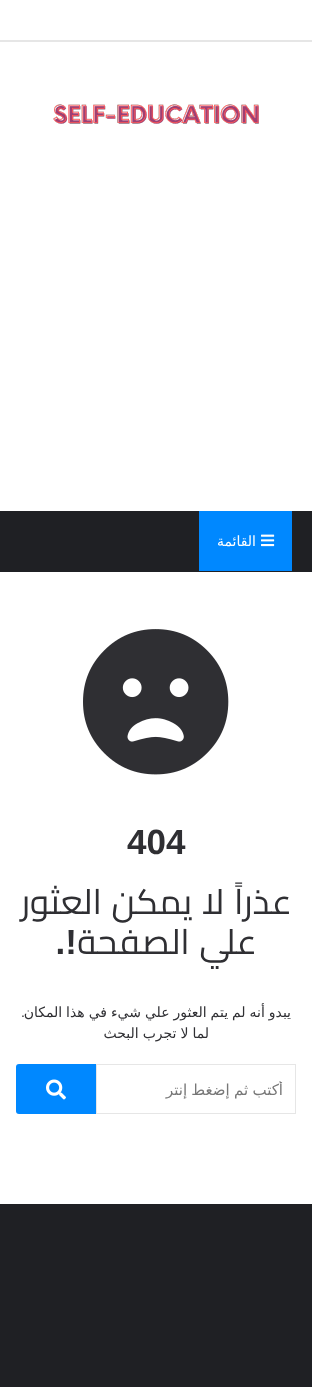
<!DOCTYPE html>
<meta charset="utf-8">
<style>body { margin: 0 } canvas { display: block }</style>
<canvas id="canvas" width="312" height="1387"></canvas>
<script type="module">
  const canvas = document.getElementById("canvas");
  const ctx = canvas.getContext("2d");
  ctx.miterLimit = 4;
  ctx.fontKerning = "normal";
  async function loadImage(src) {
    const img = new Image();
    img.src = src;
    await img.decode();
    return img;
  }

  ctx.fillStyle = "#ffffff";
  ctx.fillRect(0, 0, 312, 1387);
  ctx.fillStyle = "#e6e6e6";
  ctx.fillRect(0, 40, 312, 2);
  ctx.drawImage(await loadImage("img1.png"), 53, 104, 206, 20);
  ctx.fillStyle = "#1f2024";
  ctx.fillRect(0, 511, 312, 61);
  ctx.fillStyle = "#0088ff";
  ctx.fillRect(199, 511, 93, 60);
  ctx.drawImage(await loadImage("img2.png"), 261, 534, 14, 13);
  ctx.direction = "rtl";
  ctx.font = "14px DejaVu Sans";
  ctx.fillStyle = "#ffffff";
  ctx.fillText("القائمة", 256, 546);
  ctx.drawImage(await loadImage("img3.png"), 83, 629, 146, 146);
  ctx.direction = "ltr";
  ctx.font = "bold 35px Liberation Sans";
  ctx.fillStyle = "#2f2f33";
  ctx.fillText("404", 127, 854);
  ctx.wordSpacing = "2px";
  ctx.direction = "rtl";
  ctx.font = "35px Cairo";
  ctx.fillText("عذراً لا يمكن العثور", 292, 914);
  ctx.fillText("علي الصفحة", 257, 954);
  ctx.wordSpacing = "0px";
  ctx.font = "bold 35px Liberation Sans";
  ctx.fillText("!.", 77, 954);
  ctx.wordSpacing = "-0.5px";
  ctx.font = "14px DejaVu Sans";
  ctx.fillText("يبدو أنه لم يتم العثور علي شيء في هذا المكان", 291, 1017);
  ctx.wordSpacing = "0px";
  ctx.font = "14px Liberation Sans";
  ctx.fillText(".", 25, 1017);
  ctx.wordSpacing = "-0.5px";
  ctx.font = "14px DejaVu Sans";
  ctx.fillText("لما لا تجرب البحث", 209, 1038);
  ctx.strokeStyle = "#e6e6e6";
  ctx.strokeRect(96.5, 1064.5, 199, 49);
  ctx.save();
  ctx.beginPath();
  ctx.rect(109, 1081, 174, 18);
  ctx.clip();
  ctx.font = "15px DejaVu Sans";
  ctx.fillStyle = "#777777";
  ctx.fillText("أكتب ثم إضغط إنتر", 283, 1095);
  ctx.restore();
  ctx.fillStyle = "#0088ff";
  ctx.beginPath();
  ctx.roundRect(16, 1064, 80, 50, [3, 0, 0, 3]);
  ctx.fill();
  ctx.drawImage(await loadImage("img4.png"), 46, 1079, 20, 21);
  ctx.fillStyle = "#1f2024";
  ctx.fillRect(0, 1204, 312, 183);
</script>
